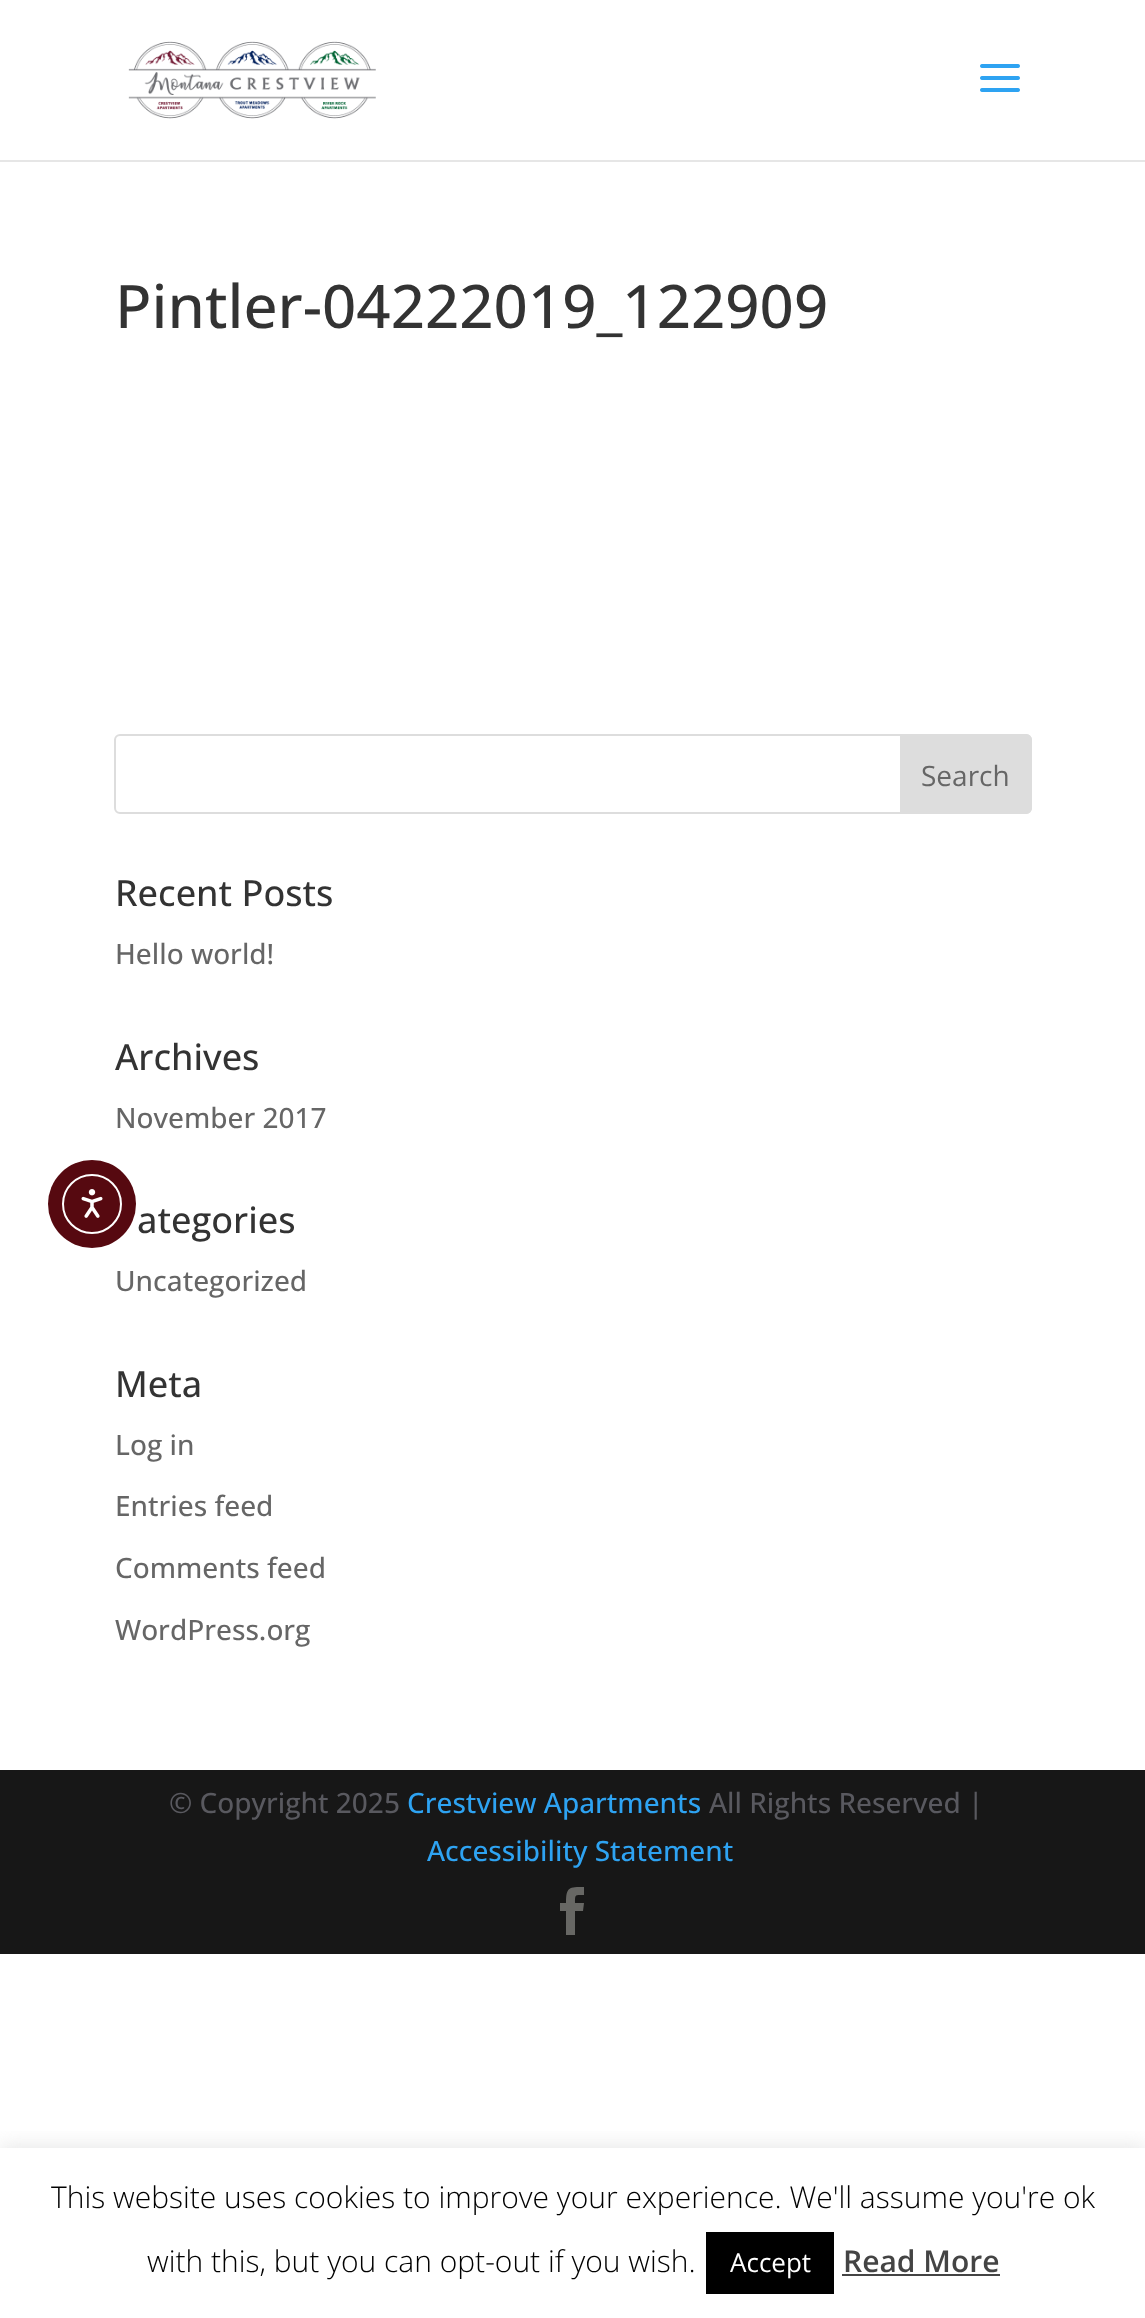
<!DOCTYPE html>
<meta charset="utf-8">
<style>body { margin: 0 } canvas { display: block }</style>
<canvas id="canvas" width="1145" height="2318"></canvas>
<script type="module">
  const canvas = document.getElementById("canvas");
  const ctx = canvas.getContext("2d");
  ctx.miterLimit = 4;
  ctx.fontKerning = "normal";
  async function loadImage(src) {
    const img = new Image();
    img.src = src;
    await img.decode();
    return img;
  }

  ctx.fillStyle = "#ffffff";
  ctx.fillRect(0, 0, 1145, 2318);
  ctx.fillStyle = "#560910";
  ctx.beginPath();
  ctx.arc(92, 1204, 44, 0, Math.PI * 2);
  ctx.fill();
  ctx.beginPath();
  ctx.arc(92, 1204, 29, 0, Math.PI * 2);
  ctx.strokeStyle = "#ffffff";
  ctx.lineWidth = 2;
  ctx.stroke();
  ctx.drawImage(await loadImage("img1.png"), 81, 1189, 22, 29);
  ctx.fillStyle = "#e6e6e6";
  ctx.fillRect(0, 160, 1145, 2);
  ctx.drawImage(await loadImage("img2.png"), 128, 41, 248, 78);
  ctx.drawImage(await loadImage("img3.png"), 980, 64, 40, 28);
  ctx.font = "500 60px Open Sans";
  ctx.fillStyle = "#333333";
  ctx.fillText("Pintler-04222019_122909", 115, 328);
  ctx.beginPath();
  ctx.roundRect(115, 735, 916, 78, 5);
  ctx.strokeStyle = "#dddddd";
  ctx.stroke();
  ctx.fillStyle = "#dddddd";
  ctx.beginPath();
  ctx.roundRect(901, 735, 130, 78, [0, 5, 5, 0]);
  ctx.fill();
  ctx.stroke();
  ctx.font = "28px Open Sans";
  ctx.fillStyle = "#666666";
  ctx.fillText("Search", 921, 786);
  ctx.font = "500 36px Open Sans";
  ctx.fillStyle = "#333333";
  ctx.fillText("Recent Posts", 115, 906);
  ctx.font = "500 28px Open Sans";
  ctx.fillStyle = "#666666";
  ctx.fillText("Hello world!", 115, 964);
  ctx.font = "500 36px Open Sans";
  ctx.fillStyle = "#333333";
  ctx.fillText("Archives", 115, 1070);
  ctx.font = "500 28px Open Sans";
  ctx.fillStyle = "#666666";
  ctx.fillText("November 2017", 115, 1128);
  ctx.font = "500 36px Open Sans";
  ctx.fillStyle = "#333333";
  ctx.fillText("ategories", 137, 1233);
  ctx.font = "500 28px Open Sans";
  ctx.fillStyle = "#666666";
  ctx.fillText("Uncategorized", 115, 1291);
  ctx.font = "500 36px Open Sans";
  ctx.fillStyle = "#333333";
  ctx.fillText("Meta", 115, 1397);
  ctx.font = "500 28px Open Sans";
  ctx.fillStyle = "#666666";
  ctx.fillText("Log in", 115, 1455);
  ctx.fillText("Entries feed", 115, 1516);
  ctx.fillText("Comments feed", 115, 1578);
  ctx.fillText("WordPress.org", 115, 1640);
  ctx.fillStyle = "#171717";
  ctx.fillRect(0, 1770, 1145, 184);
  ctx.fillStyle = "#59595f";
  ctx.fillText("© Copyright 2025", 169, 1813);
  ctx.fillStyle = "#2ea3f2";
  ctx.fillText("Crestview Apartments", 407, 1813);
  ctx.fillStyle = "#59595f";
  ctx.fillText("All Rights Reserved |", 709, 1813);
  ctx.fillStyle = "#2ea3f2";
  ctx.fillText("Accessibility Statement", 427, 1861);
  ctx.fillStyle = "#676764";
  ctx.beginPath();
  ctx.moveTo(566, 1935);
  ctx.lineTo(575, 1935);
  ctx.lineTo(575, 1911);
  ctx.lineTo(583, 1911);
  ctx.lineTo(584, 1903);
  ctx.lineTo(575, 1903);
  ctx.bezierCurveTo(575, 1894, 575, 1895, 584, 1895);
  ctx.lineTo(584, 1887);
  ctx.bezierCurveTo(569, 1887, 566, 1887, 566, 1903);
  ctx.lineTo(560, 1903);
  ctx.lineTo(560, 1911);
  ctx.lineTo(566, 1911);
  ctx.closePath();
  ctx.fill();
  ctx.save();
  ctx.beginPath();
  ctx.rect(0, 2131, 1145, 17);
  ctx.clip();
  ctx.fillStyle = "rgba(172, 171, 171, 0.3)";
  ctx.filter = "blur(10px)";
  ctx.beginPath();
  ctx.rect(0, 2146, 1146, 170);
  ctx.fill();
  ctx.filter = "none";
  ctx.restore();
  ctx.font = "300 30px Open Sans";
  ctx.fillStyle = "#000000";
  ctx.fillText("This website uses cookies to improve your experience. We'll assume you're ok", 51, 2208);
  ctx.fillText("with this, but you can opt-out if you wish.", 147, 2272);
  ctx.fillRect(706, 2232, 128, 62);
  ctx.font = "26px Open Sans";
  ctx.fillStyle = "#ffffff";
  ctx.fillText("Accept", 730, 2272);
  ctx.font = "600 30px Open Sans";
  ctx.fillStyle = "#444444";
  ctx.fillText("Read More", 843, 2272);
  ctx.fillRect(842, 2274, 158, 2);
</script>
